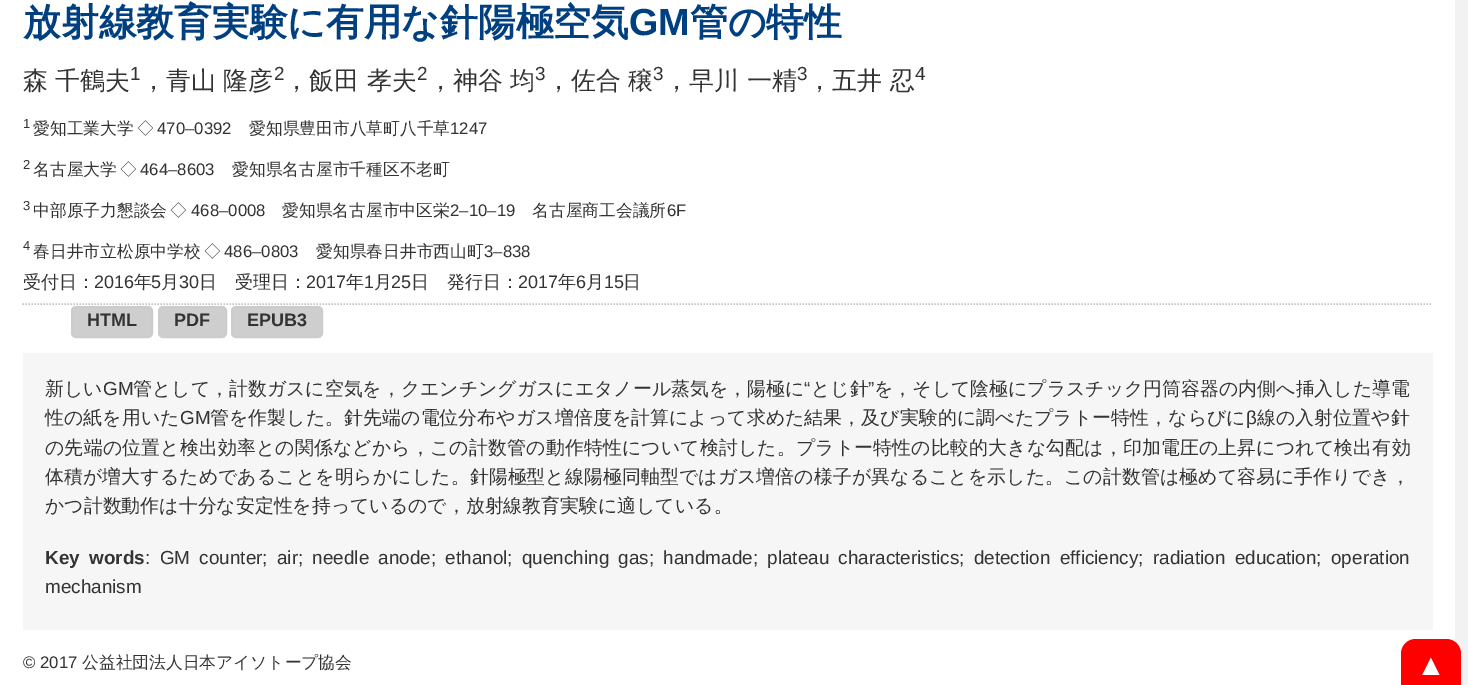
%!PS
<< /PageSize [1468 685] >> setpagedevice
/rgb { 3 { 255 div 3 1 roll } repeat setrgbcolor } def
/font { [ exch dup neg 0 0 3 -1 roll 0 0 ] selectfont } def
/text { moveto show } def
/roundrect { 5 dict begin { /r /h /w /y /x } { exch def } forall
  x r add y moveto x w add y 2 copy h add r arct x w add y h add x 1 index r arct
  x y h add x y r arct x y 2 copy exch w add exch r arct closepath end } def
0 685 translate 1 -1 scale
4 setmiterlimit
242 242 242 rgb
0 0 1468 685 rectfill
255 255 255 rgb
0 0 1455 685 rectfill
196 192 192 rgb
1.5 setlinewidth
[1.5 1.5] 0 setdash
22.5 304 moveto 1410 0 rlineto stroke
206 206 206 rgb
72 307 80 30 4 roundrect gsave fill grestore
204 204 204 rgb
2 setlinewidth
[] 0 setdash
stroke
206 206 206 rgb
159 307 67 30 4 roundrect gsave fill grestore
204 204 204 rgb
stroke
206 206 206 rgb
232 307 90 30 4 roundrect gsave fill grestore
204 204 204 rgb
stroke
246 246 246 rgb
23 353 1410 277 rectfill
255 0 0 rgb
1416 639 moveto 30 0 rlineto 8.5 0 15 6.5 15 15 rcurveto 0 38 rlineto -60 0 rlineto 0 -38 rlineto 0 -8.5 6.5 -15 15 -15 rcurveto closepath fill
/WenQuanYiZenHei-Bold 37.75 font
0 64 128 rgb
(放射線教育実験に有用な針陽極空気) 23 35 text
/LiberationSans-Bold 37.75 font
(GM) 629 35 text
/WenQuanYiZenHei-Bold 37.75 font
(管の特性) 690 35 text
/WenQuanYiZenHei-Medium 25 font
51 51 51 rgb
(森) 23 89 text
(千鶴夫) 55 89 text
/LiberationSans-Regular 18.9 font
(1) 130 80 text
/WenQuanYiZenHei-Medium 25 font
(，青山) 141 89 text
(隆彦) 223 89 text
/LiberationSans-Regular 18.9 font
(2) 274 80 text
/WenQuanYiZenHei-Medium 25 font
(，飯田) 284 89 text
(孝夫) 367 89 text
/LiberationSans-Regular 18.9 font
(2) 417 80 text
/WenQuanYiZenHei-Medium 25 font
(，神谷) 428 89 text
(均) 510 89 text
/LiberationSans-Regular 18.9 font
(3) 535 80 text
/WenQuanYiZenHei-Medium 25 font
(，佐合) 546 89 text
(穣) 628 89 text
/LiberationSans-Regular 18.9 font
(3) 653 80 text
/WenQuanYiZenHei-Medium 25 font
(，早川) 664 89 text
(一精) 747 89 text
/LiberationSans-Regular 18.9 font
(3) 797 80 text
/WenQuanYiZenHei-Medium 25 font
(，五井) 807 89 text
(忍) 890 89 text
/LiberationSans-Regular 18.9 font
(4) 915 80 text
/LiberationSans-Regular 13 font
(1) 23 128 text
/WenQuanYiZenHei-Medium 16.75 font
(愛知工業大学) 33 134 text
(◇) 137 134 text
/LiberationSans-Regular 16.75 font
(470–0392) 157 134 text
/WenQuanYiZenHei-Medium 16.75 font
(愛知県豊田市八草町八千草) 249 134 text
/LiberationSans-Regular 16.75 font
(1247) 450 134 text
/LiberationSans-Regular 13 font
(2) 23 169 text
/WenQuanYiZenHei-Medium 16.75 font
(名古屋大学) 33 175 text
(◇) 120 175 text
/LiberationSans-Regular 16.75 font
(464–8603) 140 175 text
/WenQuanYiZenHei-Medium 16.75 font
(愛知県名古屋市千種区不老町) 232 175 text
/LiberationSans-Regular 13 font
(3) 23 210 text
/WenQuanYiZenHei-Medium 16.75 font
(中部原子力懇談会) 33 216 text
(◇) 170 216 text
/LiberationSans-Regular 16.75 font
(468–0008) 191 216 text
/WenQuanYiZenHei-Medium 16.75 font
(愛知県名古屋市中区栄) 282 216 text
/LiberationSans-Regular 16.75 font
(2–10–19) 450 216 text
/WenQuanYiZenHei-Medium 16.75 font
(名古屋商工会議所) 532 216 text
/LiberationSans-Regular 16.75 font
(6F) 667 216 text
/LiberationSans-Regular 13 font
(4) 23 250 text
/WenQuanYiZenHei-Medium 16.75 font
(春日井市立松原中学校) 33 257 text
(◇) 204 257 text
/LiberationSans-Regular 16.75 font
(486–0803) 224 257 text
/WenQuanYiZenHei-Medium 16.75 font
(愛知県春日井市西山町) 316 257 text
/LiberationSans-Regular 16.75 font
(3–838) 484 257 text
/WenQuanYiZenHei-Medium 18 font
(受付日：) 23 288 text
/LiberationSans-Regular 18 font
(2016) 94 288 text
/WenQuanYiZenHei-Medium 18 font
(年) 134 288 text
/LiberationSans-Regular 18 font
(5) 151 288 text
/WenQuanYiZenHei-Medium 18 font
(月) 161 288 text
/LiberationSans-Regular 18 font
(30) 179 288 text
/WenQuanYiZenHei-Medium 18 font
(日) 199 288 text
(受理日：) 235 288 text
/LiberationSans-Regular 18 font
(2017) 306 288 text
/WenQuanYiZenHei-Medium 18 font
(年) 346 288 text
/LiberationSans-Regular 18 font
(1) 364 288 text
/WenQuanYiZenHei-Medium 18 font
(月) 374 288 text
/LiberationSans-Regular 18 font
(25) 391 288 text
/WenQuanYiZenHei-Medium 18 font
(日) 411 288 text
(発行日：) 447 288 text
/LiberationSans-Regular 18 font
(2017) 518 288 text
/WenQuanYiZenHei-Medium 18 font
(年) 558 288 text
/LiberationSans-Regular 18 font
(6) 576 288 text
/WenQuanYiZenHei-Medium 18 font
(月) 586 288 text
/LiberationSans-Regular 18 font
(15) 604 288 text
/WenQuanYiZenHei-Medium 18 font
(日) 623 288 text
/LiberationSans-Bold 18 font
(HTML) 87 326 text
(PDF) 174 326 text
(EPUB3) 247 326 text
/WenQuanYiZenHei-Medium 18.9 font
(新しい) 45 395 text
/LiberationSans-Regular 18.9 font
(GM) 103 395 text
/WenQuanYiZenHei-Medium 18.9 font
(管として，計数ガスに空気を，クエンチングガスにエタノール蒸気を，陽極に) 133 395 text
/LiberationSans-Regular 18.9 font
(“) 804 395 text
/WenQuanYiZenHei-Medium 18.9 font
(とじ針) 811 395 text
/LiberationSans-Regular 18.9 font
(”) 868 395 text
/WenQuanYiZenHei-Medium 18.9 font
(を，そして陰極にプラスチック円筒容器の内側へ挿入した導電) 874 395 text
45 424 moveto 0.08 0 (性の紙を用いた) ashow
/LiberationSans-Regular 18.9 font
180 424 moveto 0.08 0 (GM) ashow
/WenQuanYiZenHei-Medium 18.9 font
210 424 moveto 0.08 0 (管を作製した。針先端の電位分布やガス増倍度を計算によって求めた結果，及び実験的に調べたプラトー特性，ならびに) ashow
/LiberationSans-Regular 18.9 font
1246 424 moveto 0.08 0 (β) ashow
/WenQuanYiZenHei-Medium 18.9 font
1257 424 moveto 0.08 0 (線の入射位置や針) ashow
45 454 moveto 0.15 0 (の先端の位置と検出効率との関係などから，この計数管の動作特性について検討した。プラトー特性の比較的大きな勾配は，印加電圧の上昇につれて検出有効) ashow
45 483 moveto 0.08 0 (体積が増大するためであることを明らかにした。針陽極型と線陽極同軸型ではガス増倍の様子が異なることを示した。この計数管は極めて容易に手作りでき，) ashow
(かつ計数動作は十分な安定性を持っているので，放射線教育実験に適している。) 45 512 text
/LiberationSans-Bold 18.9 font
45 564 moveto 4 0 32 (Key words) widthshow
/LiberationSans-Regular 18.9 font
145 564 moveto 4 0 32 (: GM counter; air; needle anode; ethanol; quenching gas; handmade; plateau characteristics; detection efficiency; radiation education; operation) widthshow
(mechanism) 45 593 text
/LiberationSans-Regular 16.75 font
(© 2017) 23 668 text
/WenQuanYiZenHei-Medium 16.75 font
(公益社団法人日本アイソトープ協会) 82 668 text
/LiberationSans-Regular 30 font
255 255 255 rgb
(▲) 1416 675 text
showpage
